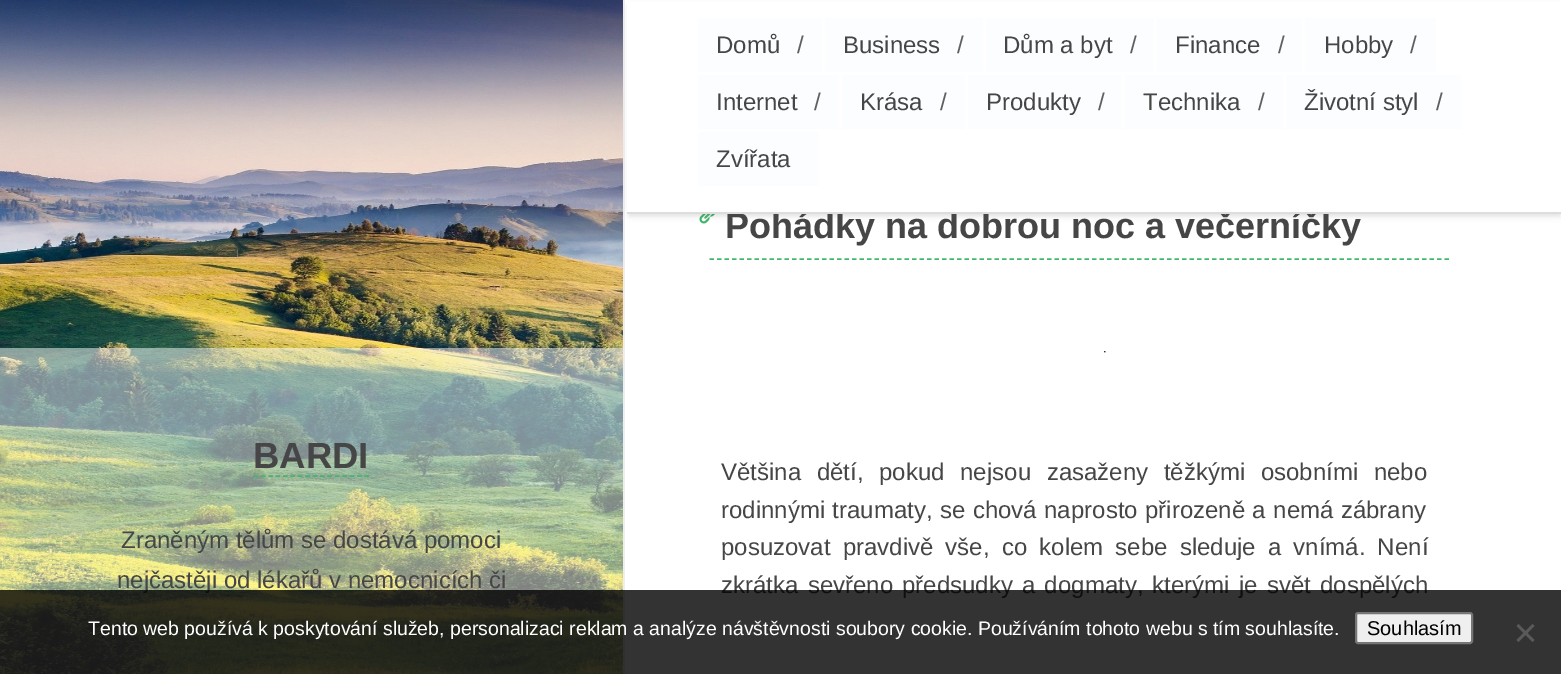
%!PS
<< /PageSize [1561 674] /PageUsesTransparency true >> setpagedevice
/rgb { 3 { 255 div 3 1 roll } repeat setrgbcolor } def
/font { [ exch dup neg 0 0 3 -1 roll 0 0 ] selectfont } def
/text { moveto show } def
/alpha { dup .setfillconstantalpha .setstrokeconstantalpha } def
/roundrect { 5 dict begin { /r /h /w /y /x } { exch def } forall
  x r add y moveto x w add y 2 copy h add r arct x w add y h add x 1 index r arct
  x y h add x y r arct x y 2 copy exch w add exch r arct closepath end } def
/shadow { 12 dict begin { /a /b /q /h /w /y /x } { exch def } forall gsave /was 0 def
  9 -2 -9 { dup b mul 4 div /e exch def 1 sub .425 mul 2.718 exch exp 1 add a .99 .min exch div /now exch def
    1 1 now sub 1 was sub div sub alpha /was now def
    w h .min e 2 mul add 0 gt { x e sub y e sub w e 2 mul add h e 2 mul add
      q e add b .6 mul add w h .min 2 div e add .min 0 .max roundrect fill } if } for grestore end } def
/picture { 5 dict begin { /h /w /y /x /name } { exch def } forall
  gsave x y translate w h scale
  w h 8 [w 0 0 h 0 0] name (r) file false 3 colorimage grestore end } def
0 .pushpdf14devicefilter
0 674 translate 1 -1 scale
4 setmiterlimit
255 255 255 rgb
0 0 1561 674 rectfill
(img_01.rgb) 0 0 623 674 picture
238 238 238 rgb
623 0 2 674 rectfill
0.5 alpha
255 255 255 rgb
0 348 623 326 rectfill
1 alpha
64 183 106 rgb
1.5 setlinewidth
[4.5 2.9] 0 setdash
253.5 476 moveto 115.5 0 rlineto stroke
(img_02.rgb) 699 214 16 10 picture
80 80 80 rgb
629 6 931 210 0 3 0.2 shadow
64 183 106 rgb
[4.5 3] 0 setdash
709.5 259 moveto 739.5 0 rlineto stroke
(img_03.rgb) 1104 351 2 2 picture
/LiberationSans-Bold 36.5 font
70 70 70 rgb
(BARDI) 253 468 text
/LiberationSans-Regular 24 font
(Zraněným tělům se dostává pomoci) 121 548 text
(nejčastěji od lékařů v nemocnicích či) 117 588 text
/LiberationSans-Bold 36 font
(Pohádky na dobrou noc a večerníčky) 725 238 text
255 255 255 rgb
627 2 934 210 rectfill
252 253 254 rgb
698 132 121 54 rectfill
/LiberationSans-Regular 24 font
70 70 70 rgb
(Zvířata) 716 167 text
252 253 254 rgb
1286 75 175 54 rectfill
96 96 96 rgb
(/) 1436 110 text
70 70 70 rgb
(Životní styl) 1304 110 text
252 253 254 rgb
1125 75 158 54 rectfill
96 96 96 rgb
(/) 1258 110 text
70 70 70 rgb
(Technika) 1143 110 text
252 253 254 rgb
968 75 154 54 rectfill
96 96 96 rgb
(/) 1098 110 text
70 70 70 rgb
(Produkty) 986 110 text
252 253 254 rgb
842 75 123 54 rectfill
96 96 96 rgb
(/) 940 110 text
70 70 70 rgb
(Krása) 860 110 text
252 253 254 rgb
698 75 141 54 rectfill
96 96 96 rgb
(/) 814 110 text
70 70 70 rgb
(Internet) 716 110 text
252 253 254 rgb
1305 18 131 54 rectfill
96 96 96 rgb
(/) 1410 53 text
70 70 70 rgb
(Hobby) 1324 53 text
252 253 254 rgb
1157 18 145 54 rectfill
96 96 96 rgb
(/) 1278 53 text
70 70 70 rgb
(Finance) 1175 53 text
252 253 254 rgb
986 18 168 54 rectfill
96 96 96 rgb
(/) 1130 53 text
70 70 70 rgb
(Dům a byt) 1003 53 text
252 253 254 rgb
825 18 158 54 rectfill
96 96 96 rgb
(/) 957 53 text
70 70 70 rgb
(Business) 843 53 text
252 253 254 rgb
698 18 124 54 rectfill
96 96 96 rgb
(/) 797 53 text
70 70 70 rgb
(Domů) 716 53 text
221 221 221 rgb
627 212 934 2 rectfill
70 70 70 rgb
721 480 moveto 9 0 32 (Většina dětí, pokud nejsou zasaženy těžkými osobními nebo) widthshow
721 518 moveto 0.75 0 32 (rodinnými traumaty, se chová naprosto přirozeně a nemá zábrany) widthshow
721 555 moveto 5.5 0 32 (posuzovat pravdivě vše, co kolem sebe sleduje a vnímá. Není) widthshow
721 593 moveto 2.5 0 32 (zkrátka sevřeno předsudky a dogmaty, kterými je svět dospělých) widthshow
0.8 alpha
0 0 0 rgb
0 590 1561 84 rectfill
/LiberationSans-Regular 19.5 font
1 alpha
255 255 255 rgb
(Tento web používá k poskytování služeb, personalizaci reklam a analýze návštěvnosti soubory cookie. Používáním tohoto webu s tím souhlasíte.) 88 635 text
239 239 239 rgb
1356 613 116 30 2 roundrect gsave fill grestore
118 118 118 rgb
2 setlinewidth
[] 0 setdash
stroke
/LiberationSans-Regular 20 font
0 0 0 rgb
(Souhlasím) 1367 635 text
90 90 90 rgb
1532.5 624 moveto 2 2 rlineto -16 16 rlineto -2 -2 rlineto closepath fill
1516.5 626 moveto 2 -2 rlineto 16 16 rlineto -2 2 rlineto closepath fill
.poppdf14devicefilter showpage
